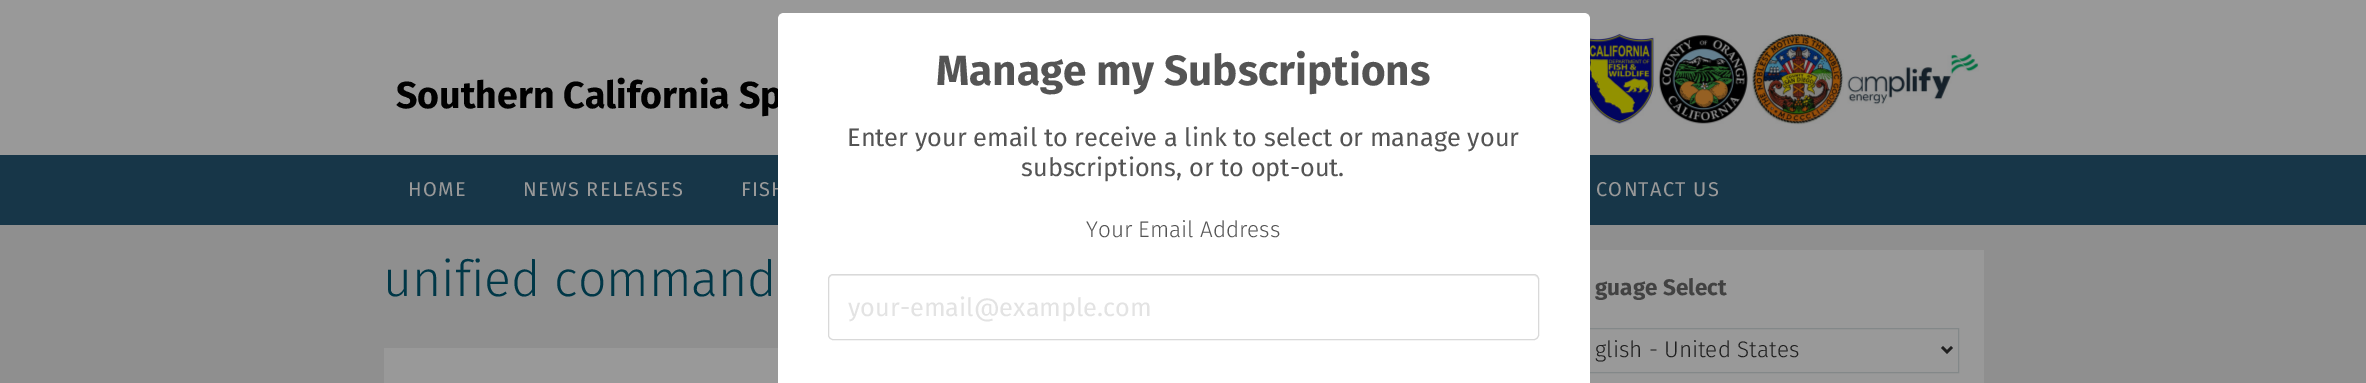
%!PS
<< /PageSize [2366 383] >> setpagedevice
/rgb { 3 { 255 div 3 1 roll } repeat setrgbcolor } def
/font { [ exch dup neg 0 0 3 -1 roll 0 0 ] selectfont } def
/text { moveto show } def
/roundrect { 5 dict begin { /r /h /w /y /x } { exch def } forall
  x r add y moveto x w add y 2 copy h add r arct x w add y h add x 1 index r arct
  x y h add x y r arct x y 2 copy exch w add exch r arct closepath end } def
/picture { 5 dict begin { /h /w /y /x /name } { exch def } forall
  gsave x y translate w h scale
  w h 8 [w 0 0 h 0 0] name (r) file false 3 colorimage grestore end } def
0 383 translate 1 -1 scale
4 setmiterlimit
143 143 143 rgb
0 0 2366 383 rectfill
153 153 153 rgb
0 0 2366 155 rectfill
(img_01.rgb) 1590 31 389 94 picture
23 54 72 rgb
0 155 2366 70 rectfill
153 153 153 rgb
384 348 394 35 rectfill
1590 250 394 133 rectfill
131 136 137 rgb
1559.5 328.5 399 44 rectstroke
31 31 31 rgb
2.5 setlinewidth
1942 347 moveto 5 5 rlineto 5 -5 rlineto stroke
/FiraSans-Bold 37.5 font
0 0 0 rgb
(Southern California Sp) 396 108 text
/FiraSans-Regular 20 font
153 153 153 rgb
408 196 moveto 1.25 0 (HOME) ashow
523 196 moveto 1.25 0 (NEWS RELEASES) ashow
741 196 moveto 1.25 0 (FISH) ashow
255 255 255 rgb
784 13 moveto 800 0 rlineto 3.5 0 6 2.5 6 6 rcurveto 0 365 rlineto -812 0 rlineto 0 -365 rlineto 0 -3.5 2.5 -6 6 -6 rcurveto closepath fill
/FiraSans-Regular 25.3 font
84 84 84 rgb
(subscriptions, or to opt-out.) 1021 176 text
(Enter your email to receive a link to select or manage your) 847 146 text
/FiraSans-Bold 42.25 font
(Manage my Subscriptions) 936 85 text
240 240 240 rgb
832 276 moveto 702 0 rlineto 2 0 4 2 4 4 rcurveto 0 -3 -1 -5 -4 -5 rcurveto -701 0 rlineto -3 1 rlineto -1 1 rlineto 0 3 rlineto 0 -2 1 -4 3 -4 rcurveto closepath fill
217 217 217 rgb
1 setlinewidth
828.5 274.5 710 65 4.5 roundrect stroke
/FiraSans-Regular 25.3 font
227 227 227 rgb
(your-email@example.com) 848 316 text
/FiraSans-Light 22.5 font
84 84 84 rgb
(Your Email Address) 1086 237 text
/FiraSans-Regular 20 font
153 153 153 rgb
1596 196 moveto 1.25 0 (CONTACT US) ashow
/FiraSans-Light 50 font
0 55 71 rgb
(unified command) 383 296 text
/FiraSans-Bold 22.5 font
66 66 66 rgb
(guage Select) 1595 295 text
/FiraSans-Light 22.5 font
31 31 31 rgb
(glish - United States) 1595 357 text
showpage
